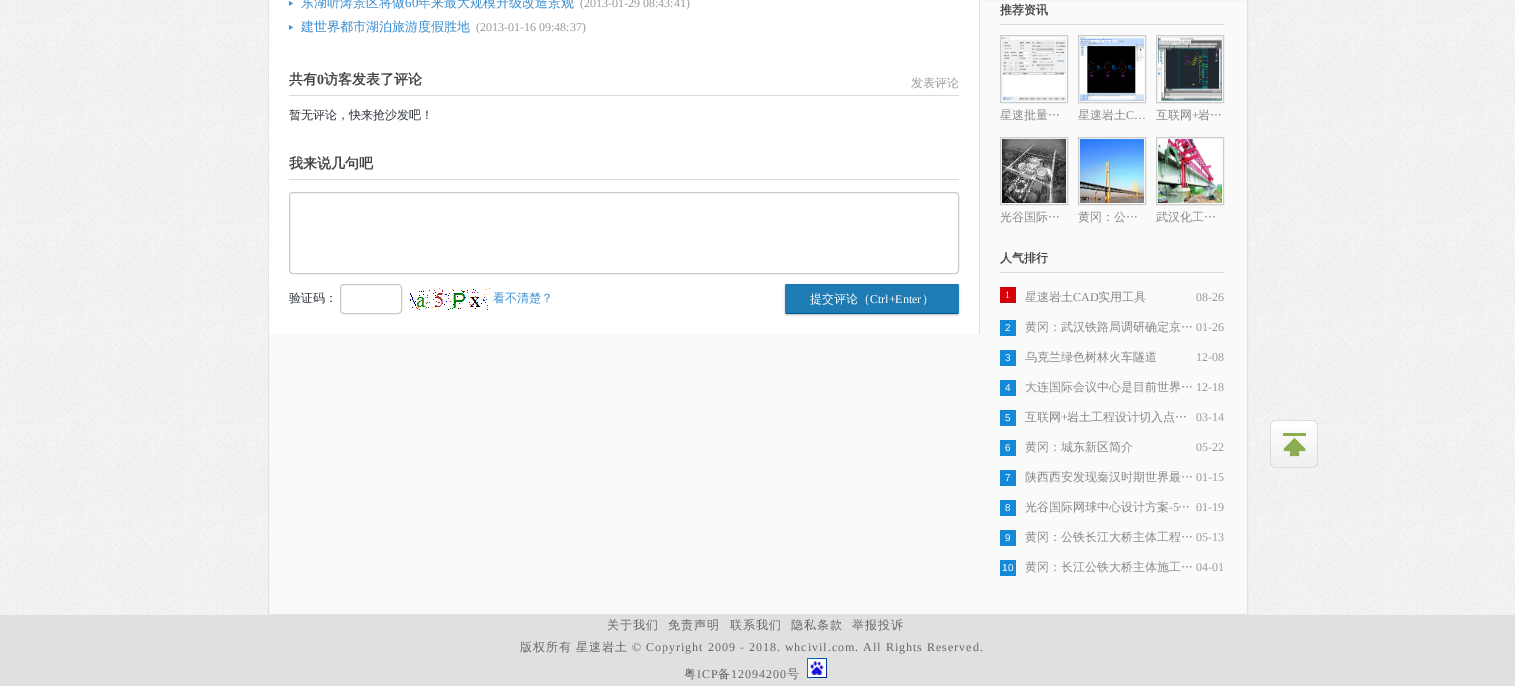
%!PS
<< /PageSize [1515 686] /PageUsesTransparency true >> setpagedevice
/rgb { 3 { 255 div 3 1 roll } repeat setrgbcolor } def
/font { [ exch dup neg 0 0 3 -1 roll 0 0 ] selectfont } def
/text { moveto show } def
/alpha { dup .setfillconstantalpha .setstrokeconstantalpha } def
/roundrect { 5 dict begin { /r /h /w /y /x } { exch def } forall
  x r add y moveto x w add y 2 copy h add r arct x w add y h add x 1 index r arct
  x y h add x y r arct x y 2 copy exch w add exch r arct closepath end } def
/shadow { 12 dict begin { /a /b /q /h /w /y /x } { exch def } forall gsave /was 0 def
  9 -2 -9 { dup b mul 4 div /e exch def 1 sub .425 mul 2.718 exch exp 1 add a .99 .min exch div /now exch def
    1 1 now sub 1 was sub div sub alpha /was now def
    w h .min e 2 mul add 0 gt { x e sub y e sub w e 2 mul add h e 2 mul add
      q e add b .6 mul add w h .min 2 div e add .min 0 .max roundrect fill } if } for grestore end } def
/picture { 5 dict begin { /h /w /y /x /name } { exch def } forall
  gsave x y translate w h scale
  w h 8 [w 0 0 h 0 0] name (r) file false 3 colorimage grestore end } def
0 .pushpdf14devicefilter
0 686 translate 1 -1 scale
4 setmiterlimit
255 255 255 rgb
0 0 1515 686 rectfill
(img_01.rgb) 0 0 1515 615 picture
250 250 250 rgb
268.5 -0.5 moveto 979 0 rlineto 0 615 rlineto -979 0 rlineto closepath gsave fill grestore
226 226 226 rgb
stroke
255 255 255 rgb
269 0 710 334 rectfill
226 226 226 rgb
979 0 1 334 rectfill
(img_02.rgb) 289 1 5 5 picture
(img_02.rgb) 289 25 5 5 picture
218 218 218 rgb
289 95 670 1 rectfill
289 179 670 1 rectfill
202 202 202 rgb
289.5 192.5 669 81 3.5 roundrect stroke
340.5 284.5 61 29 3.5 roundrect stroke
(img_03.rgb) 410 288 80 22 picture
187 187 187 rgb
785 285 174 30 2 1 1 shadow
30 123 179 rgb
785 284 174 30 2 roundrect fill
2 89 142 rgb
786 313 172 1 rectfill
218 218 218 rgb
1000 24 224 1 rectfill
204 204 204 rgb
1000.5 35.5 67 67 rectstroke
(img_04.rgb) 1002 37 64 64 picture
1078.5 35.5 67 67 rectstroke
(img_05.rgb) 1080 37 64 64 picture
1156.5 35.5 67 67 rectstroke
(img_06.rgb) 1158 37 64 64 picture
1000.5 137.5 67 67 rectstroke
(img_07.rgb) 1002 139 64 64 picture
1078.5 137.5 67 67 rectstroke
(img_08.rgb) 1080 139 64 64 picture
1156.5 137.5 67 67 rectstroke
(img_09.rgb) 1158 139 64 64 picture
218 218 218 rgb
1000 272 224 1 rectfill
214 0 7 rgb
1000 287 16 16 rectfill
19 137 215 rgb
1000 320 16 16 rectfill
1000 350 16 16 rectfill
1000 380 16 16 rectfill
1000 410 16 16 rectfill
1000 440 16 16 rectfill
1000 470 16 16 rectfill
1000 500 16 16 rectfill
1000 530 16 16 rectfill
1000 560 16 16 rectfill
(img_10.rgb) 1270 420 48 48 picture
224 224 224 rgb
0 615 1515 71 rectfill
(img_11.rgb) 807 658 20 20 picture
/WenQuanYiZenHei-Medium 13 font
59 141 209 rgb
(东湖听涛景区将做) 301 7 text
/LiberationSerif-Regular 13 font
(60) 405 7 text
/WenQuanYiZenHei-Medium 13 font
(年来最大规模升级改造景观) 418 7 text
/LiberationSerif-Regular 12 font
153 153 153 rgb
(\(2013-01-29 08:43:41\)) 580 7 text
/WenQuanYiZenHei-Medium 13 font
59 141 209 rgb
(建世界都市湖泊旅游度假胜地) 301 31 text
/LiberationSerif-Regular 12 font
153 153 153 rgb
(\(2013-01-16 09:48:37\)) 476 31 text
/WenQuanYiZenHei-Bold 14 font
68 68 68 rgb
(共有) 289 84 text
/LiberationSerif-Bold 14 font
(0) 317 84 text
/WenQuanYiZenHei-Bold 14 font
(访客发表了评论) 324 84 text
/WenQuanYiZenHei-Medium 12 font
153 153 153 rgb
(发表评论) 911 87 text
51 56 61 rgb
(暂无评论，快来抢沙发吧！) 289 119 text
/WenQuanYiZenHei-Bold 14 font
68 68 68 rgb
(我来说几句吧) 289 168 text
/WenQuanYiZenHei-Medium 12 font
51 56 61 rgb
(验证码：) 289 302 text
59 141 209 rgb
(看不清楚？) 493 302 text
255 255 255 rgb
(提交评论（) 810 303 text
/LiberationSerif-Regular 12 font
(Ctrl+Enter) 870 303 text
/WenQuanYiZenHei-Medium 12 font
(）) 922 303 text
/WenQuanYiZenHei-Bold 12 font
68 68 68 rgb
(推荐资讯) 1000 14 text
/WenQuanYiZenHei-Medium 12 font
136 136 136 rgb
(星速批量…) 1000 119 text
(星速岩土) 1078 119 text
/LiberationSerif-Regular 12 font
(C…) 1126 119 text
/WenQuanYiZenHei-Medium 12 font
(互联网) 1156 119 text
/LiberationSerif-Regular 12 font
(+) 1192 119 text
/WenQuanYiZenHei-Medium 12 font
(岩…) 1198 119 text
(光谷国际…) 1000 221 text
(黄冈：公…) 1078 221 text
(武汉化工…) 1156 221 text
/WenQuanYiZenHei-Bold 12 font
68 68 68 rgb
(人气排行) 1000 262 text
/LiberationSerif-Regular 10 font
255 255 255 rgb
(1) 1005 298 text
/WenQuanYiZenHei-Medium 12 font
136 136 136 rgb
(星速岩土) 1025 301 text
/LiberationSerif-Regular 12 font
(CAD) 1073 301 text
/WenQuanYiZenHei-Medium 12 font
(实用工具) 1098 301 text
/LiberationSerif-Regular 12 font
153 153 153 rgb
(08-26) 1196 301 text
/LiberationSans-Regular 10 font
255 255 255 rgb
(2) 1005 331 text
/WenQuanYiZenHei-Medium 12 font
136 136 136 rgb
(黄冈：武汉铁路局调研确定京…) 1025 331 text
/LiberationSerif-Regular 12 font
153 153 153 rgb
(01-26) 1196 331 text
/LiberationSans-Regular 10 font
255 255 255 rgb
(3) 1005 361 text
/WenQuanYiZenHei-Medium 12 font
136 136 136 rgb
(乌克兰绿色树林火车隧道) 1025 361 text
/LiberationSerif-Regular 12 font
153 153 153 rgb
(12-08) 1196 361 text
/LiberationSans-Regular 10 font
255 255 255 rgb
(4) 1005 391 text
/WenQuanYiZenHei-Medium 12 font
136 136 136 rgb
(大连国际会议中心是目前世界…) 1025 391 text
/LiberationSerif-Regular 12 font
153 153 153 rgb
(12-18) 1196 391 text
/LiberationSans-Regular 10 font
255 255 255 rgb
(5) 1005 421 text
/WenQuanYiZenHei-Medium 12 font
136 136 136 rgb
(互联网) 1025 421 text
/LiberationSerif-Regular 12 font
(+) 1061 421 text
/WenQuanYiZenHei-Medium 12 font
(岩土工程设计切入点…) 1067 421 text
/LiberationSerif-Regular 12 font
153 153 153 rgb
(03-14) 1196 421 text
/LiberationSans-Regular 10 font
255 255 255 rgb
(6) 1005 451 text
/WenQuanYiZenHei-Medium 12 font
136 136 136 rgb
(黄冈：城东新区简介) 1025 451 text
/LiberationSerif-Regular 12 font
153 153 153 rgb
(05-22) 1196 451 text
/LiberationSans-Regular 10 font
255 255 255 rgb
(7) 1005 481 text
/WenQuanYiZenHei-Medium 12 font
136 136 136 rgb
(陕西西安发现秦汉时期世界最…) 1025 481 text
/LiberationSerif-Regular 12 font
153 153 153 rgb
(01-15) 1196 481 text
/LiberationSans-Regular 10 font
255 255 255 rgb
(8) 1005 511 text
/WenQuanYiZenHei-Medium 12 font
136 136 136 rgb
(光谷国际网球中心设计方案) 1025 511 text
/LiberationSerif-Regular 12 font
(-5) 1169 511 text
/WenQuanYiZenHei-Medium 12 font
(…) 1178 511 text
/LiberationSerif-Regular 12 font
153 153 153 rgb
(01-19) 1196 511 text
/LiberationSans-Regular 10 font
255 255 255 rgb
(9) 1005 541 text
/WenQuanYiZenHei-Medium 12 font
136 136 136 rgb
(黄冈：公铁长江大桥主体工程…) 1025 541 text
/LiberationSerif-Regular 12 font
153 153 153 rgb
(05-13) 1196 541 text
/LiberationSans-Regular 10 font
255 255 255 rgb
(10) 1002 571 text
/WenQuanYiZenHei-Medium 12 font
136 136 136 rgb
(黄冈：长江公铁大桥主体施工…) 1025 571 text
/LiberationSerif-Regular 12 font
153 153 153 rgb
(04-01) 1196 571 text
/WenQuanYiZenHei-Medium 12 font
102 102 102 rgb
607 629 moveto 1 0 (关于我们) ashow
668 629 moveto 1 0 (免责声明) ashow
730 629 moveto 1 0 (联系我们) ashow
791 629 moveto 1 0 (隐私条款) ashow
852 629 moveto 1 0 (举报投诉) ashow
520 651 moveto 1 0 (版权所有) ashow
576 651 moveto 1 0 (星速岩土) ashow
/LiberationSerif-Regular 12 font
632 651 moveto 1 0 (© Copyright 2009 - 2018. whcivil.com. All Rights Reserved.) ashow
/WenQuanYiZenHei-Medium 12 font
684 678 moveto 1 0 (粤) ashow
/LiberationSerif-Regular 12 font
697 678 moveto 1 0 (ICP) ashow
/WenQuanYiZenHei-Medium 12 font
718 678 moveto 1 0 (备) ashow
/LiberationSerif-Regular 12 font
731 678 moveto 1 0 (12094200) ashow
/WenQuanYiZenHei-Medium 12 font
787 678 moveto 1 0 (号) ashow
.poppdf14devicefilter showpage
